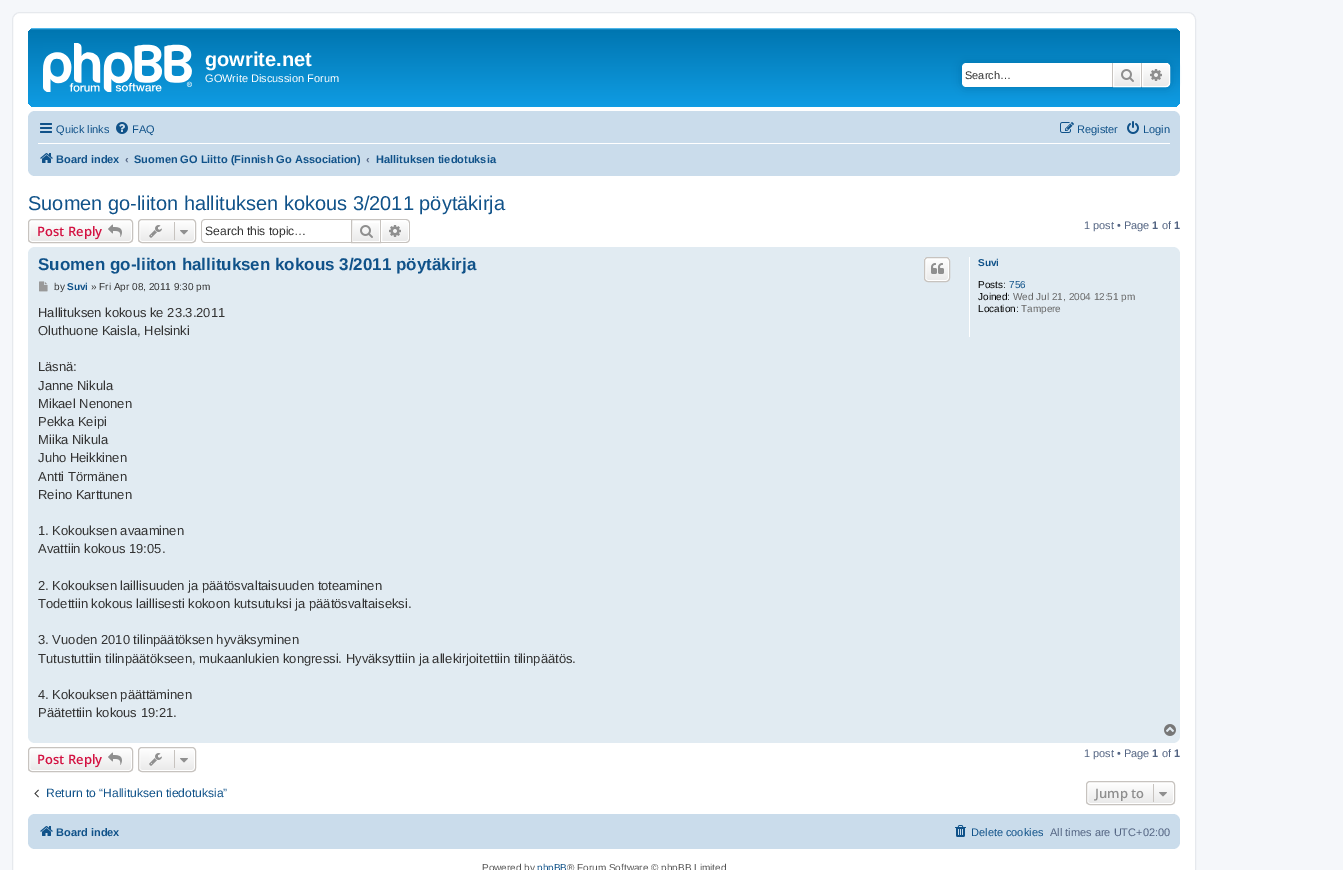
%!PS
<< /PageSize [1343 870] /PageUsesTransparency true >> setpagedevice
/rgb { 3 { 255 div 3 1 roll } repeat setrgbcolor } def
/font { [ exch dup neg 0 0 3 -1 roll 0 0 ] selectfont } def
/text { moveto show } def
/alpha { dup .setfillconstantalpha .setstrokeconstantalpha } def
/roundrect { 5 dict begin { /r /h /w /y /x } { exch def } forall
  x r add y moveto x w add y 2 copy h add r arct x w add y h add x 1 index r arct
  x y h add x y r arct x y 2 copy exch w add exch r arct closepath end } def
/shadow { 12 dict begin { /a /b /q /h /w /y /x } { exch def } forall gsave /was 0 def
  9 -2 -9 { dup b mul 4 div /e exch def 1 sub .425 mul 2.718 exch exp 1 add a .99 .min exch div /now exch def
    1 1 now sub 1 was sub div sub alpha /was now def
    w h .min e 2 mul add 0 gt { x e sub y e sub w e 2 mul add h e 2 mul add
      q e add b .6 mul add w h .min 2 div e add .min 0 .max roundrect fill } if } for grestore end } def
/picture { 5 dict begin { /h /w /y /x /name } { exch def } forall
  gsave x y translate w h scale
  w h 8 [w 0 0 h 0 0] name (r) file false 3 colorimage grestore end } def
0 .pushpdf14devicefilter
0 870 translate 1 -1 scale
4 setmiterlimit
245 247 250 rgb
0 0 1343 870 rectfill
255 255 255 rgb
12.5 12.5 1183 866 7.5 roundrect gsave fill grestore
230 233 237 rgb
stroke
gsave 28 28 1152 79 7 roundrect clip newpath
<< /ShadingType 2 /ColorSpace /DeviceRGB /Coords [604 28 604 120] /Extend [true true] /Function << /FunctionType 3 /Domain [0 1] /Functions [<< /FunctionType 2 /Domain [0 1] /C0 [0.416 0.808 1] /C1 [0 0.463 0.694] /N 1 >> << /FunctionType 2 /Domain [0 1] /C0 [0 0.463 0.694] /C1 [0.071 0.639 0.922] /N 1 >>] /Bounds [0.02] /Encode [0 1 0 1] >> >> shfill grestore
(img_01.rgb) 43 43 149 49 picture
0 117 176 rgb
962 63 208 24 4 5 1 shadow
255 255 255 rgb
966 63 moveto 146 0 rlineto 0 24 rlineto -146 0 rlineto -2 0 -4 -2 -4 -4 rcurveto 0 -16 rlineto 0 -2 2 -4 4 -4 rcurveto closepath fill
gsave 1114 64 moveto 26 0 rlineto 0 22 rlineto -26 0 rlineto closepath clip newpath
<< /ShadingType 2 /ColorSpace /DeviceRGB /Coords [1127 63 1127 87] /Extend [true true] /Function << /FunctionType 2 /Domain [0 1] /C0 [1 1 1] /C1 [0.914 0.914 0.914] /N 1 >> >> shfill grestore
1113.5 63.5 27 23 rectstroke
199 195 191 rgb
1141 63 1 24 rectfill
1112 63 1 24 rectfill
(img_02.rgb) 1121 69 13 13 picture
gsave 1142.5 63.5 moveto 23.5 0 rlineto 2 0 3.5 1.5 3.5 3.5 rcurveto 0 16 rlineto 0 2 -1.5 3.5 -3.5 3.5 rcurveto -23.5 0 rlineto closepath clip newpath
<< /ShadingType 2 /ColorSpace /DeviceRGB /Coords [1156 63 1156 87] /Extend [true true] /Function << /FunctionType 2 /Domain [0 1] /C0 [1 1 1] /C1 [0.914 0.914 0.914] /N 1 >> >> shfill grestore
255 255 255 rgb
1142.5 63.5 moveto 23.5 0 rlineto 2 0 3.5 1.5 3.5 3.5 rcurveto 0 16 rlineto 0 2 -1.5 3.5 -3.5 3.5 rcurveto -23.5 0 rlineto closepath stroke
(img_03.rgb) 1150 69 12 12 picture
202 220 235 rgb
28 111 1152 65 7 roundrect fill
(img_04.rgb) 40 123 12 10 picture
(img_05.rgb) 116 122 12 12 picture
(img_06.rgb) 1060 122 14 11 picture
(img_07.rgb) 1127 121 12 13 picture
255 255 255 rgb
38 143 1132 1 rectfill
(img_08.rgb) 40 153 13 10 picture
gsave
28 219 105 24 4 roundrect clip newpath
gsave 28 220 moveto 105 0 rlineto 0 22 rlineto -105 0 rlineto closepath clip newpath
<< /ShadingType 2 /ColorSpace /DeviceRGB /Coords [81 220 81 242] /Extend [true true] /Function << /FunctionType 2 /Domain [0 1] /C0 [1 1 1] /C1 [0.914 0.914 0.914] /N 1 >> >> shfill grestore
grestore
29.5 220.5 102 21 2.5 roundrect stroke
199 195 191 rgb
28.5 219.5 104 23 3.5 roundrect stroke
(img_09.rgb) 108 224 14 13 picture
gsave
138 219 58 24 4 roundrect clip newpath
gsave 138 220 moveto 58 0 rlineto 0 22 rlineto -58 0 rlineto closepath clip newpath
<< /ShadingType 2 /ColorSpace /DeviceRGB /Coords [167 220 167 242] /Extend [true true] /Function << /FunctionType 2 /Domain [0 1] /C0 [1 1 1] /C1 [0.914 0.914 0.914] /N 1 >> >> shfill grestore
grestore
255 255 255 rgb
139.5 220.5 55 21 2.5 roundrect stroke
199 195 191 rgb
138.5 219.5 57 23 3.5 roundrect stroke
(img_10.rgb) 149 225 13 13 picture
174 222 1 18 rectfill
(img_11.rgb) 180 230 8 5 picture
205 219 moveto 146 0 rlineto 0 24 rlineto -146 0 rlineto -2 0 -4 -2 -4 -4 rcurveto 0 -16 rlineto 0 -2 2 -4 4 -4 rcurveto closepath 205 220 moveto 146 0 rlineto 0 22 rlineto -146 0 rlineto -2 0 -3 -1 -3 -3 rcurveto 0 -16 rlineto 0 -2 1 -3 3 -3 rcurveto closepath eofill
gsave 353 223 moveto 26 0 rlineto 0 18 rlineto -26 0 rlineto closepath clip newpath
<< /ShadingType 2 /ColorSpace /DeviceRGB /Coords [366 220 366 242] /Extend [true true] /Function << /FunctionType 2 /Domain [0 1] /C0 [1 1 1] /C1 [0.914 0.914 0.914] /N 1 >> >> shfill grestore
351.5 219.5 29 23 rectstroke
(img_12.rgb) 360 225 13 13 picture
gsave 381.5 220.5 moveto 24.5 0 rlineto 1.5 0 2.5 1 2.5 2.5 rcurveto 0 16 rlineto 0 1.5 -1 2.5 -2.5 2.5 rcurveto -24.5 0 rlineto closepath clip newpath
<< /ShadingType 2 /ColorSpace /DeviceRGB /Coords [395 220 395 242] /Extend [true true] /Function << /FunctionType 2 /Domain [0 1] /C0 [1 1 1] /C1 [0.914 0.914 0.914] /N 1 >> >> shfill grestore
255 255 255 rgb
381.5 220.5 moveto 24.5 0 rlineto 1.5 0 2.5 1 2.5 2.5 rcurveto 0 16 rlineto 0 1.5 -1 2.5 -2.5 2.5 rcurveto -24.5 0 rlineto closepath stroke
199 195 191 rgb
381 219 moveto 25 0 rlineto 2 0 4 2 4 4 rcurveto 0 16 rlineto 0 2 -2 4 -4 4 rcurveto -25 0 rlineto closepath 381 220 moveto 25 0 rlineto 1.5 0 3 1.5 3 3 rcurveto 0 16 rlineto 0 1.5 -1.5 3 -3 3 rcurveto -25 0 rlineto closepath eofill
(img_13.rgb) 389 225 12 12 picture
225 235 242 rgb
28 247 1152 496 7 roundrect fill
gsave
924 257 26 25 4 roundrect clip newpath
gsave 924 258 moveto 26 0 rlineto 0 23 rlineto -26 0 rlineto closepath clip newpath
<< /ShadingType 2 /ColorSpace /DeviceRGB /Coords [937 258 937 281] /Extend [true true] /Function << /FunctionType 2 /Domain [0 1] /C0 [1 1 1] /C1 [0.914 0.914 0.914] /N 1 >> >> shfill grestore
grestore
255 255 255 rgb
925.5 258.5 23 22 2.5 roundrect stroke
199 195 191 rgb
924.5 257.5 25 24 3.5 roundrect stroke
(img_14.rgb) 931 263 13 11 picture
(img_15.rgb) 39 281 9 11 picture
255 255 255 rgb
969 257 1 80 rectfill
(img_16.rgb) 1164 724 12 12 picture
gsave
28 747 105 25 4 roundrect clip newpath
gsave 28 748 moveto 105 0 rlineto 0 23 rlineto -105 0 rlineto closepath clip newpath
<< /ShadingType 2 /ColorSpace /DeviceRGB /Coords [81 748 81 771] /Extend [true true] /Function << /FunctionType 2 /Domain [0 1] /C0 [1 1 1] /C1 [0.914 0.914 0.914] /N 1 >> >> shfill grestore
grestore
29.5 748.5 102 22 2.5 roundrect stroke
199 195 191 rgb
28.5 747.5 104 24 3.5 roundrect stroke
(img_09.rgb) 108 752 14 13 picture
gsave
138 747 58 25 4 roundrect clip newpath
gsave 138 748 moveto 58 0 rlineto 0 23 rlineto -58 0 rlineto closepath clip newpath
<< /ShadingType 2 /ColorSpace /DeviceRGB /Coords [167 748 167 771] /Extend [true true] /Function << /FunctionType 2 /Domain [0 1] /C0 [1 1 1] /C1 [0.914 0.914 0.914] /N 1 >> >> shfill grestore
grestore
255 255 255 rgb
139.5 748.5 55 22 2.5 roundrect stroke
199 195 191 rgb
138.5 747.5 57 24 3.5 roundrect stroke
(img_10.rgb) 149 753 13 13 picture
174 750 1 18 rectfill
(img_11.rgb) 180 758 8 5 picture
(img_17.rgb) 34 789 5 9 picture
gsave
1086 781 89 24 4 roundrect clip newpath
gsave 1086 782 moveto 89 0 rlineto 0 22 rlineto -89 0 rlineto closepath clip newpath
<< /ShadingType 2 /ColorSpace /DeviceRGB /Coords [1131 782 1131 804] /Extend [true true] /Function << /FunctionType 2 /Domain [0 1] /C0 [1 1 1] /C1 [0.914 0.914 0.914] /N 1 >> >> shfill grestore
grestore
255 255 255 rgb
1087.5 782.5 86 21 2.5 roundrect stroke
199 195 191 rgb
1086.5 781.5 88 23 3.5 roundrect stroke
1153 784 1 18 rectfill
(img_11.rgb) 1159 792 8 5 picture
202 220 235 rgb
28 814 1152 35 7 roundrect fill
(img_08.rgb) 40 826 13 10 picture
(img_18.rgb) 955 825 11 12 picture
/LiberationSans-Bold 20 font
255 255 255 rgb
(gowrite.net) 205 66 text
/LiberationSans-Regular 11 font
(GOWrite Discussion Forum) 205 82 text
51 51 51 rgb
(Search…) 965 79 text
16 82 137 rgb
(Quick links) 56 133 text
(FAQ) 132 133 text
(Register) 1077 133 text
(Login) 1143 133 text
/LiberationSans-Bold 11 font
(Board index) 56 163 text
83 100 130 rgb
(‹) 125 163 text
16 82 137 rgb
(Suomen GO Liitto \(Finnish Go Association\)) 134 163 text
83 100 130 rgb
(‹) 366 163 text
16 82 137 rgb
(Hallituksen tiedotuksia) 376 163 text
/LiberationSans-Regular 20 font
(Suomen go-liiton hallituksen kokous 3/2011 pöytäkirja) 28 210 text
/OpenSans-SemiBold 13 font
211 17 65 rgb
(Post Reply) 37 236 text
/LiberationSans-Regular 12.1 font
51 51 51 rgb
(Search this topic…) 205 235 text
/LiberationSans-Regular 11 font
83 100 130 rgb
(1 post • Page) 1084 229 text
/LiberationSans-Bold 11 font
(1) 1152 229 text
/LiberationSans-Regular 11 font
(of) 1162 229 text
/LiberationSans-Bold 11 font
(1) 1174 229 text
/LiberationSans-Bold 17 font
16 82 137 rgb
(Suomen go-liiton hallituksen kokous 3/2011 pöytäkirja) 38 270 text
/LiberationSans-Regular 10 font
51 51 51 rgb
(by) 54 290 text
/LiberationSans-Bold 10 font
16 82 137 rgb
(Suvi) 67 290 text
/LiberationSans-Regular 10 font
51 51 51 rgb
(» Fri Apr 08, 2011 9:30 pm) 91 290 text
/LiberationSans-Regular 13 font
(Hallituksen kokous ke 23.3.2011) 38 317 text
(Oluthuone Kaisla, Helsinki) 38 335 text
(Läsnä:) 38 371 text
(Janne Nikula) 38 390 text
(Mikael Nenonen) 38 408 text
(Pekka Keipi) 38 426 text
(Miika Nikula) 38 444 text
(Juho Heikkinen) 38 462 text
(Antti Törmänen) 38 481 text
(Reino Karttunen) 38 499 text
(1. Kokouksen avaaminen) 38 535 text
(Avattiin kokous 19:05.) 38 553 text
(2. Kokouksen laillisuuden ja päätösvaltaisuuden toteaminen) 38 590 text
(Todettiin kokous laillisesti kokoon kutsutuksi ja päätösvaltaiseksi.) 38 608 text
(3. Vuoden 2010 tilinpäätöksen hyväksyminen) 38 644 text
(Tutustuttiin tilinpäätökseen, mukaanlukien kongressi. Hyväksyttiin ja allekirjoitettiin tilinpäätös.) 38 663 text
(4. Kokouksen päättäminen) 38 699 text
(Päätettiin kokous 19:21.) 38 717 text
/LiberationSans-Bold 10 font
16 82 137 rgb
(Suvi) 978 266 text
/LiberationSans-Regular 10 font
0 0 0 rgb
(Posts:) 978 288 text
16 82 137 rgb
(756) 1009 288 text
0 0 0 rgb
(Joined:) 978 300 text
102 102 102 rgb
(Wed Jul 21, 2004 12:51 pm) 1013 300 text
0 0 0 rgb
(Location:) 978 312 text
102 102 102 rgb
(Tampere) 1021 312 text
/OpenSans-SemiBold 13 font
211 17 65 rgb
(Post Reply) 37 764 text
/LiberationSans-Regular 11 font
83 100 130 rgb
(1 post • Page) 1084 757 text
/LiberationSans-Bold 11 font
(1) 1152 757 text
/LiberationSans-Regular 11 font
(of) 1162 757 text
/LiberationSans-Bold 11 font
(1) 1174 757 text
/LiberationSans-Regular 12.1 font
16 82 137 rgb
(Return to “Hallituksen tiedotuksia”) 46 797 text
/OpenSans-SemiBold 13 font
143 143 143 rgb
(Jump to) 1095 798 text
/LiberationSans-Bold 11 font
16 82 137 rgb
(Board index) 56 836 text
/LiberationSans-Regular 11 font
(Delete cookies) 971 836 text
83 100 130 rgb
(All times are UTC+02:00) 1050 836 text
/LiberationSans-Regular 10 font
85 85 85 rgb
(Powered by) 482 871 text
16 82 137 rgb
(phpBB) 537 871 text
85 85 85 rgb
(® Forum Software © phpBB Limited) 567 871 text
.poppdf14devicefilter showpage
